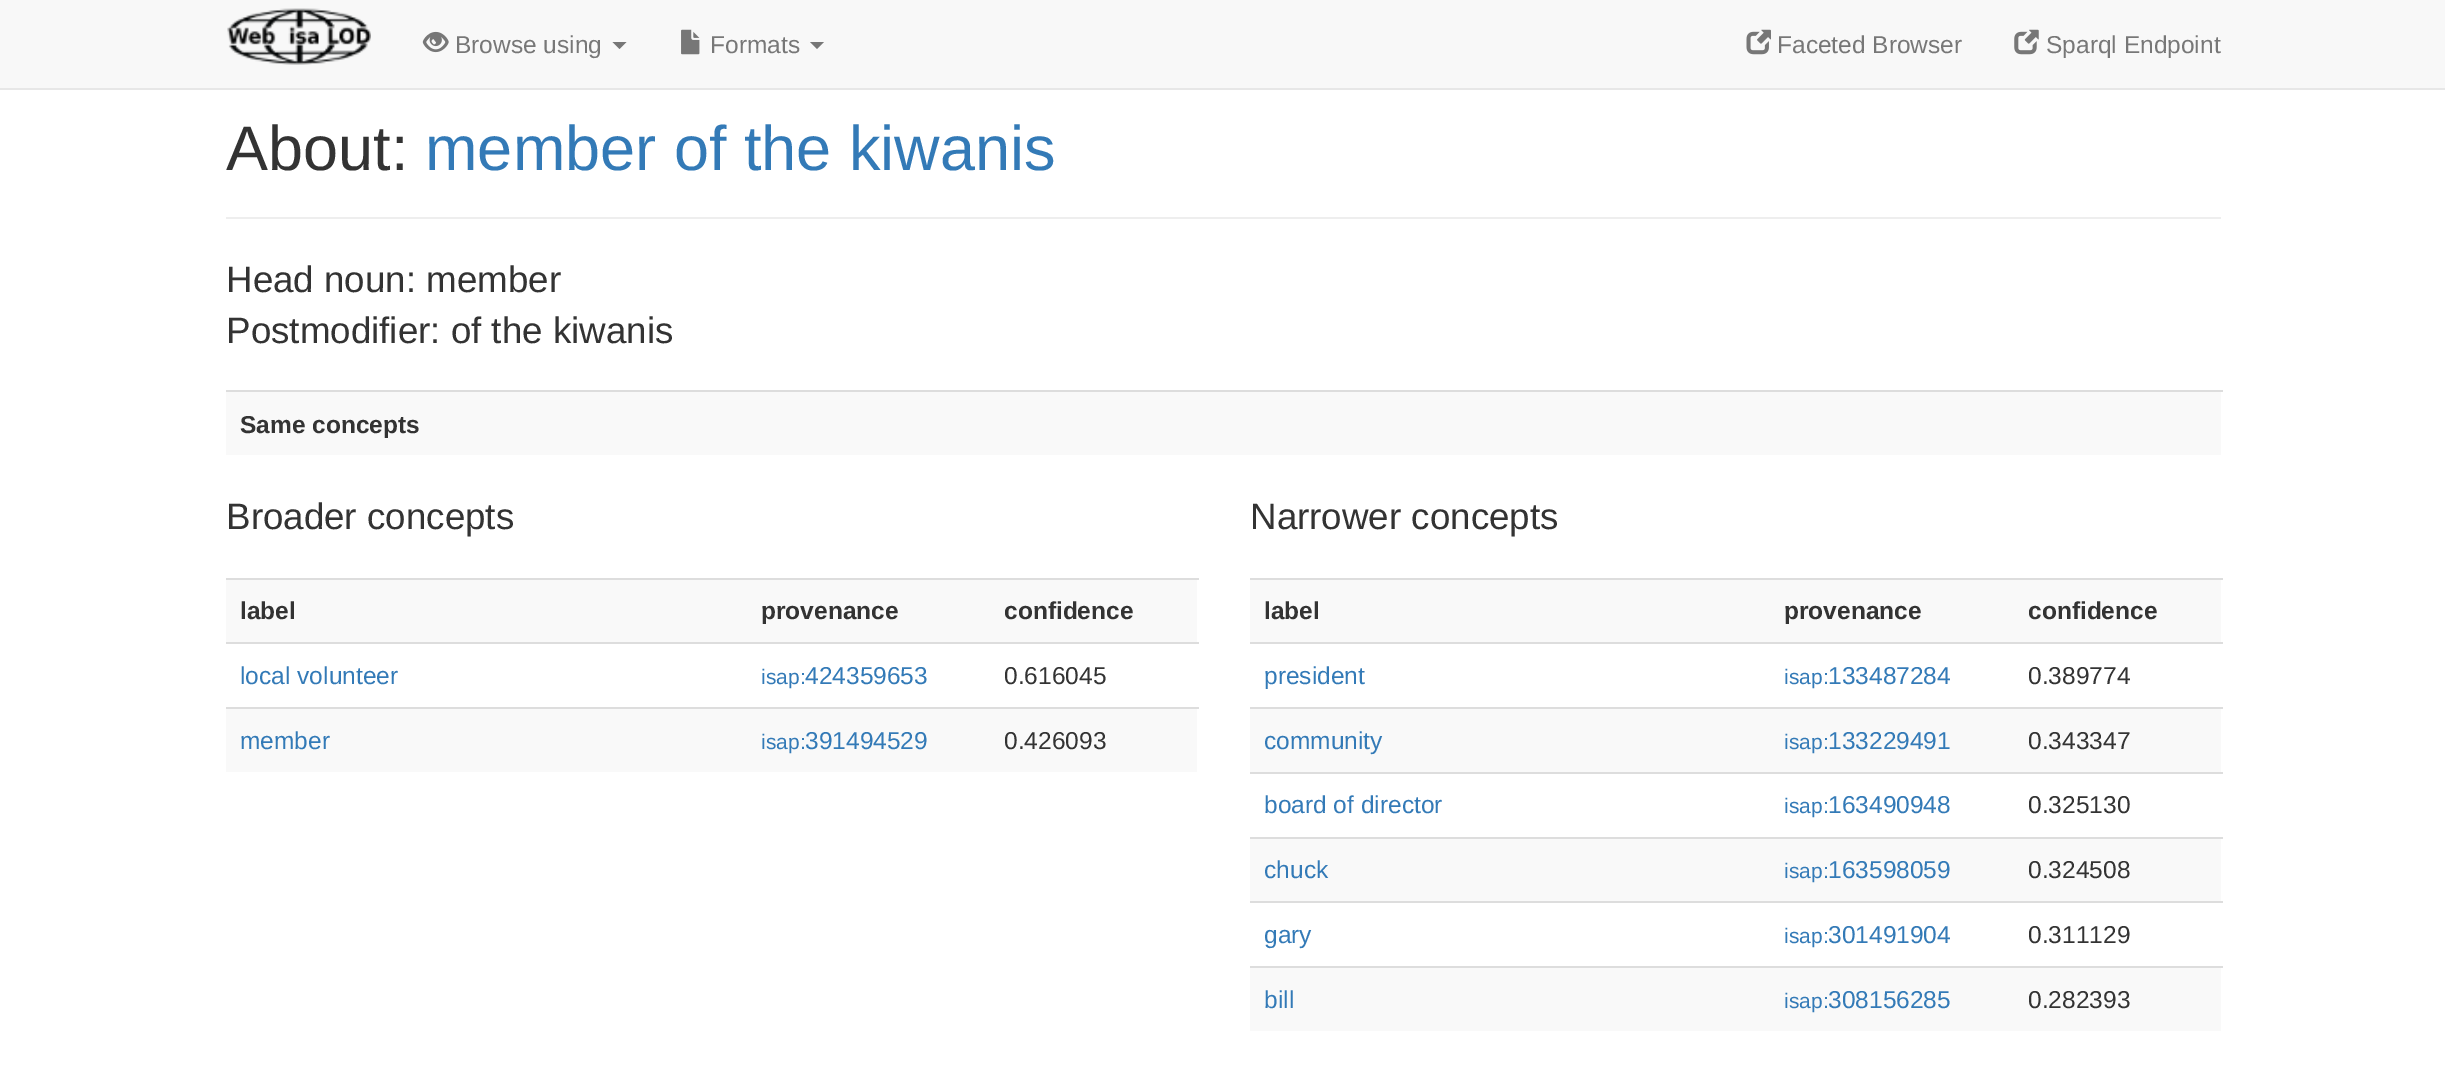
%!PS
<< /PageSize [2445 1075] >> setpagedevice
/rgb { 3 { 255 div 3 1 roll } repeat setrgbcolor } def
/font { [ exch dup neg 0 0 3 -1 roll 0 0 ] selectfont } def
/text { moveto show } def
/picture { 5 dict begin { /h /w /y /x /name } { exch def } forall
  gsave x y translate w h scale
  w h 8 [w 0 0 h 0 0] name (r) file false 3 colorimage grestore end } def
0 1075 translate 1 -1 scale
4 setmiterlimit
255 255 255 rgb
0 0 2445 1075 rectfill
248 248 248 rgb
0 0 2445 88 rectfill
231 231 231 rgb
0 88 2445 2 rectfill
(img_01.rgb) 227 8 144 57 picture
(img_02.rgb) 422 31 27 22 picture
119 119 119 rgb
612.5 42 moveto 14 0 rlineto -7 7 rlineto closepath fill
(img_03.rgb) 681 29 19 26 picture
810 42 moveto 14 0 rlineto -7 7 rlineto closepath fill
(img_04.rgb) 1746 29 25 26 picture
(img_05.rgb) 2014 29 25 26 picture
238 238 238 rgb
226 217 1995 2 rectfill
249 249 249 rgb
226 392 1995 63 rectfill
221 221 221 rgb
226 390 1997 2 rectfill
249 249 249 rgb
226 580 971 62 rectfill
221 221 221 rgb
226 578 973 2 rectfill
226 642 973 2 rectfill
249 249 249 rgb
226 709 971 63 rectfill
221 221 221 rgb
226 707 973 2 rectfill
249 249 249 rgb
1250 580 971 62 rectfill
221 221 221 rgb
1250 578 973 2 rectfill
1250 642 973 2 rectfill
249 249 249 rgb
1250 709 971 63 rectfill
221 221 221 rgb
1250 707 973 2 rectfill
1250 772 973 2 rectfill
249 249 249 rgb
1250 839 971 62 rectfill
221 221 221 rgb
1250 837 973 2 rectfill
1250 901 973 2 rectfill
249 249 249 rgb
1250 968 971 63 rectfill
221 221 221 rgb
1250 966 973 2 rectfill
/LiberationSans-Regular 24.5 font
119 119 119 rgb
(Browse using) 455 53 text
(Formats) 710 53 text
(Faceted Browser) 1777 53 text
(Sparql Endpoint) 2046 53 text
/LiberationSans-Regular 63 font
51 51 51 rgb
(About:) 226 170 text
51 122 183 rgb
(member of the kiwanis) 425 170 text
/LiberationSans-Regular 36.75 font
51 51 51 rgb
(Head noun: member) 226 292 text
(Postmodifier: of the kiwanis) 226 343 text
/LiberationSans-Bold 24.5 font
(Same concepts) 240 433 text
/LiberationSans-Regular 36.75 font
(Broader concepts) 226 529 text
/LiberationSans-Bold 24.5 font
(label) 240 619 text
(provenance) 761 619 text
(confidence) 1004 619 text
/LiberationSans-Regular 24.5 font
51 122 183 rgb
(local volunteer) 240 684 text
/LiberationSans-Regular 21 font
(isap:) 761 684 text
/LiberationSans-Regular 24.5 font
(424359653) 805 684 text
51 51 51 rgb
(0.616045) 1004 684 text
51 122 183 rgb
(member) 240 749 text
/LiberationSans-Regular 21 font
(isap:) 761 749 text
/LiberationSans-Regular 24.5 font
(391494529) 805 749 text
51 51 51 rgb
(0.426093) 1004 749 text
/LiberationSans-Regular 36.75 font
(Narrower concepts) 1250 529 text
/LiberationSans-Bold 24.5 font
(label) 1264 619 text
(provenance) 1784 619 text
(confidence) 2028 619 text
/LiberationSans-Regular 24.5 font
51 122 183 rgb
(president) 1264 684 text
/LiberationSans-Regular 21 font
(isap:) 1784 684 text
/LiberationSans-Regular 24.5 font
(133487284) 1828 684 text
51 51 51 rgb
(0.389774) 2028 684 text
51 122 183 rgb
(community) 1264 749 text
/LiberationSans-Regular 21 font
(isap:) 1784 749 text
/LiberationSans-Regular 24.5 font
(133229491) 1828 749 text
51 51 51 rgb
(0.343347) 2028 749 text
51 122 183 rgb
(board of director) 1264 813 text
/LiberationSans-Regular 21 font
(isap:) 1784 813 text
/LiberationSans-Regular 24.5 font
(163490948) 1828 813 text
51 51 51 rgb
(0.325130) 2028 813 text
51 122 183 rgb
(chuck) 1264 878 text
/LiberationSans-Regular 21 font
(isap:) 1784 878 text
/LiberationSans-Regular 24.5 font
(163598059) 1828 878 text
51 51 51 rgb
(0.324508) 2028 878 text
51 122 183 rgb
(gary) 1264 943 text
/LiberationSans-Regular 21 font
(isap:) 1784 943 text
/LiberationSans-Regular 24.5 font
(301491904) 1828 943 text
51 51 51 rgb
(0.311129) 2028 943 text
51 122 183 rgb
(bill) 1264 1008 text
/LiberationSans-Regular 21 font
(isap:) 1784 1008 text
/LiberationSans-Regular 24.5 font
(308156285) 1828 1008 text
51 51 51 rgb
(0.282393) 2028 1008 text
showpage
